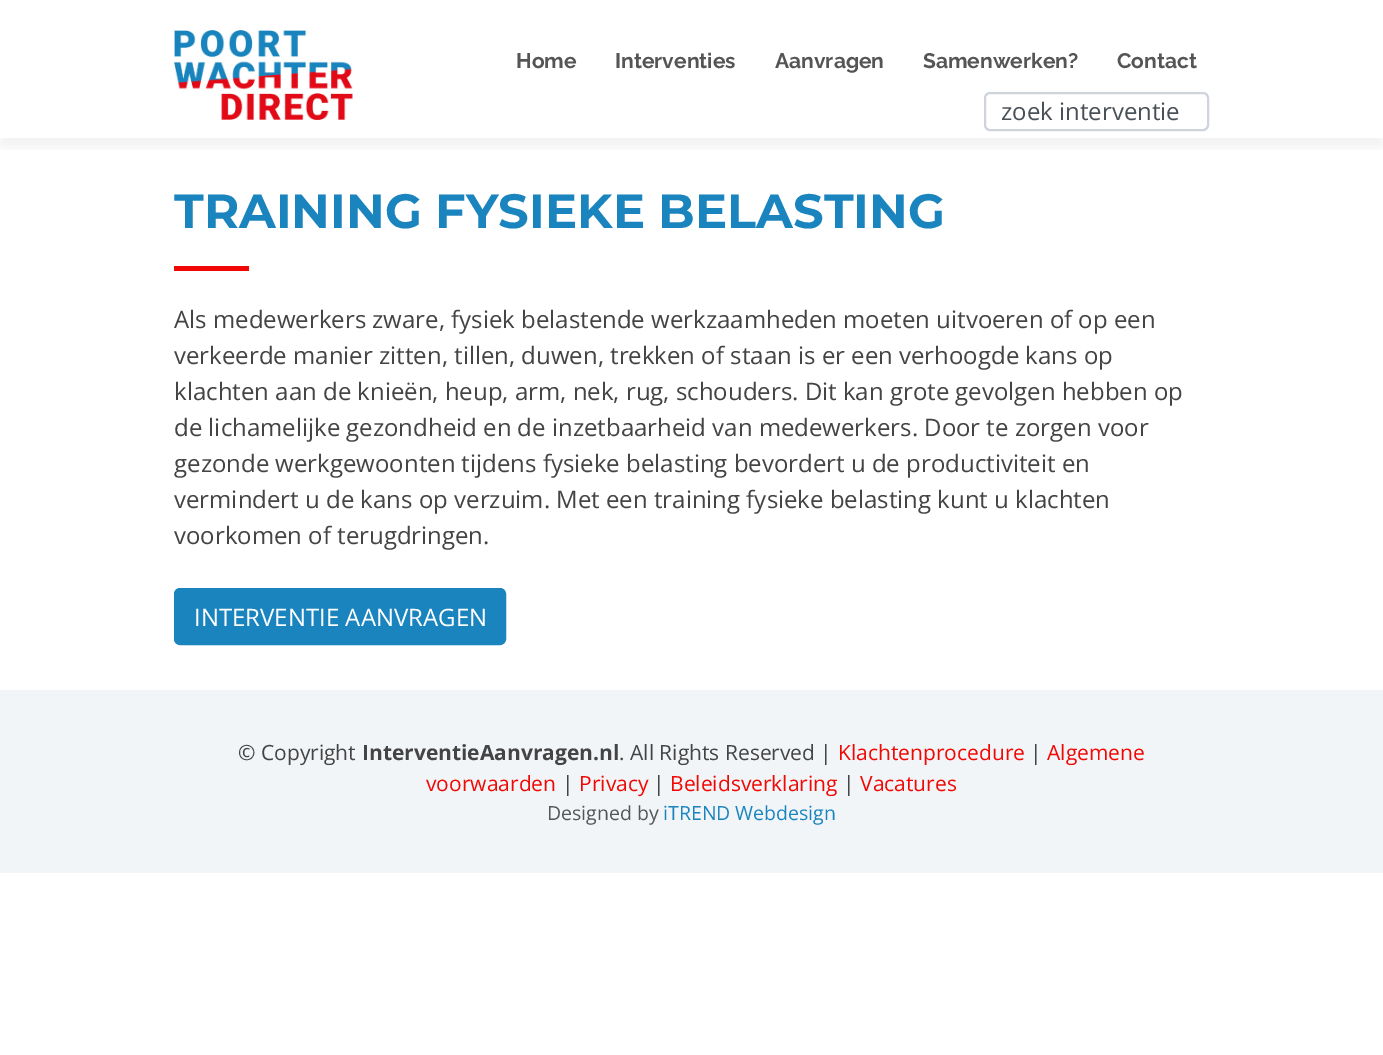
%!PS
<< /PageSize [1383 1055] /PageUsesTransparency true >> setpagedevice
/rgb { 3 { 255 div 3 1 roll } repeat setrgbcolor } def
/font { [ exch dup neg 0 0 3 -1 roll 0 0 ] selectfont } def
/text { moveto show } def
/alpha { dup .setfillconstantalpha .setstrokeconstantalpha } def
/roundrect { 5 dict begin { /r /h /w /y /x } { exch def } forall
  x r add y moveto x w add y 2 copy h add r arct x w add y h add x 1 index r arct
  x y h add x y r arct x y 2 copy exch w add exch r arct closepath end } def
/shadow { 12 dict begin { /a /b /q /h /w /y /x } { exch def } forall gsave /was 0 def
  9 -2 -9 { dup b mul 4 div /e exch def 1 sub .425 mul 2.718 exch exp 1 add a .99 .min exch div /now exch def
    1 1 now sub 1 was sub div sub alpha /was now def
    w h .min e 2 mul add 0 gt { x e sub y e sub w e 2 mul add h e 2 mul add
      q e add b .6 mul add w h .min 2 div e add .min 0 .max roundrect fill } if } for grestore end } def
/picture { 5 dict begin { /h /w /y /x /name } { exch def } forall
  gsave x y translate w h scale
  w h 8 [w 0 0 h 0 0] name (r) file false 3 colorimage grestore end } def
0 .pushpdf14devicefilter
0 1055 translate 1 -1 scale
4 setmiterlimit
255 255 255 rgb
0 0 1383 1055 rectfill
gsave
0 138 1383 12 rectclip
0 0 0 rgb
0 9 1383 138 0 7 0.06 shadow
grestore
(img_01.rgb) 174 30 179 90 picture
206 212 218 rgb
2 setlinewidth
985 93 223 37 5 roundrect stroke
241 8 4 rgb
174 266 75 5 rectfill
26 132 190 rgb
175 589 330 55 5 roundrect gsave fill grestore
stroke
242 245 248 rgb
0 690 1383 183 rectfill
/Raleway-Bold 21 font
85 85 85 rgb
(Home) 516 68 text
(Interventies) 615 68 text
(Aanvragen) 775 68 text
(Samenwerken?) 923 68 text
(Contact) 1117 68 text
/OpenSans-Regular 24 font
73 80 87 rgb
(zoek interventie) 1001 120 text
/Montserrat-Bold 48 font
26 132 190 rgb
(TRAINING FYSIEKE BELASTING) 174 228 text
/OpenSans-Regular 24 font
68 68 68 rgb
(Als medewerkers zware, fysiek belastende werkzaamheden moeten uitvoeren of op een) 174 328 text
(verkeerde manier zitten, tillen, duwen, trekken of staan is er een verhoogde kans op) 174 364 text
(klachten aan de knieën, heup, arm, nek, rug, schouders. Dit kan grote gevolgen hebben op) 174 400 text
(de lichamelijke gezondheid en de inzetbaarheid van medewerkers. Door te zorgen voor) 174 436 text
(gezonde werkgewoonten tijdens fysieke belasting bevordert u de productiviteit en) 174 472 text
(vermindert u de kans op verzuim. Met een training fysieke belasting kunt u klachten) 174 508 text
(voorkomen of terugdringen.) 174 544 text
255 255 255 rgb
(INTERVENTIE AANVRAGEN) 194 626 text
/OpenSans-Regular 21 font
68 68 68 rgb
(© Copyright) 238 760 text
/OpenSans-Bold 21 font
(InterventieAanvragen.nl) 362 760 text
/OpenSans-Regular 21 font
(. All Rights Reserved |) 619 760 text
241 8 4 rgb
(Klachtenprocedure) 838 760 text
68 68 68 rgb
(|) 1030 760 text
241 8 4 rgb
(Algemene) 1047 760 text
(voorwaarden) 426 791 text
68 68 68 rgb
(|) 562 791 text
241 8 4 rgb
(Privacy) 579 791 text
68 68 68 rgb
(|) 653 791 text
241 8 4 rgb
(Beleidsverklaring) 670 791 text
68 68 68 rgb
(|) 843 791 text
241 8 4 rgb
(Vacatures) 860 791 text
/OpenSans-Regular 19.5 font
85 85 85 rgb
(Designed by) 547 820 text
26 132 190 rgb
(iTREND Webdesign) 663 820 text
.poppdf14devicefilter showpage
